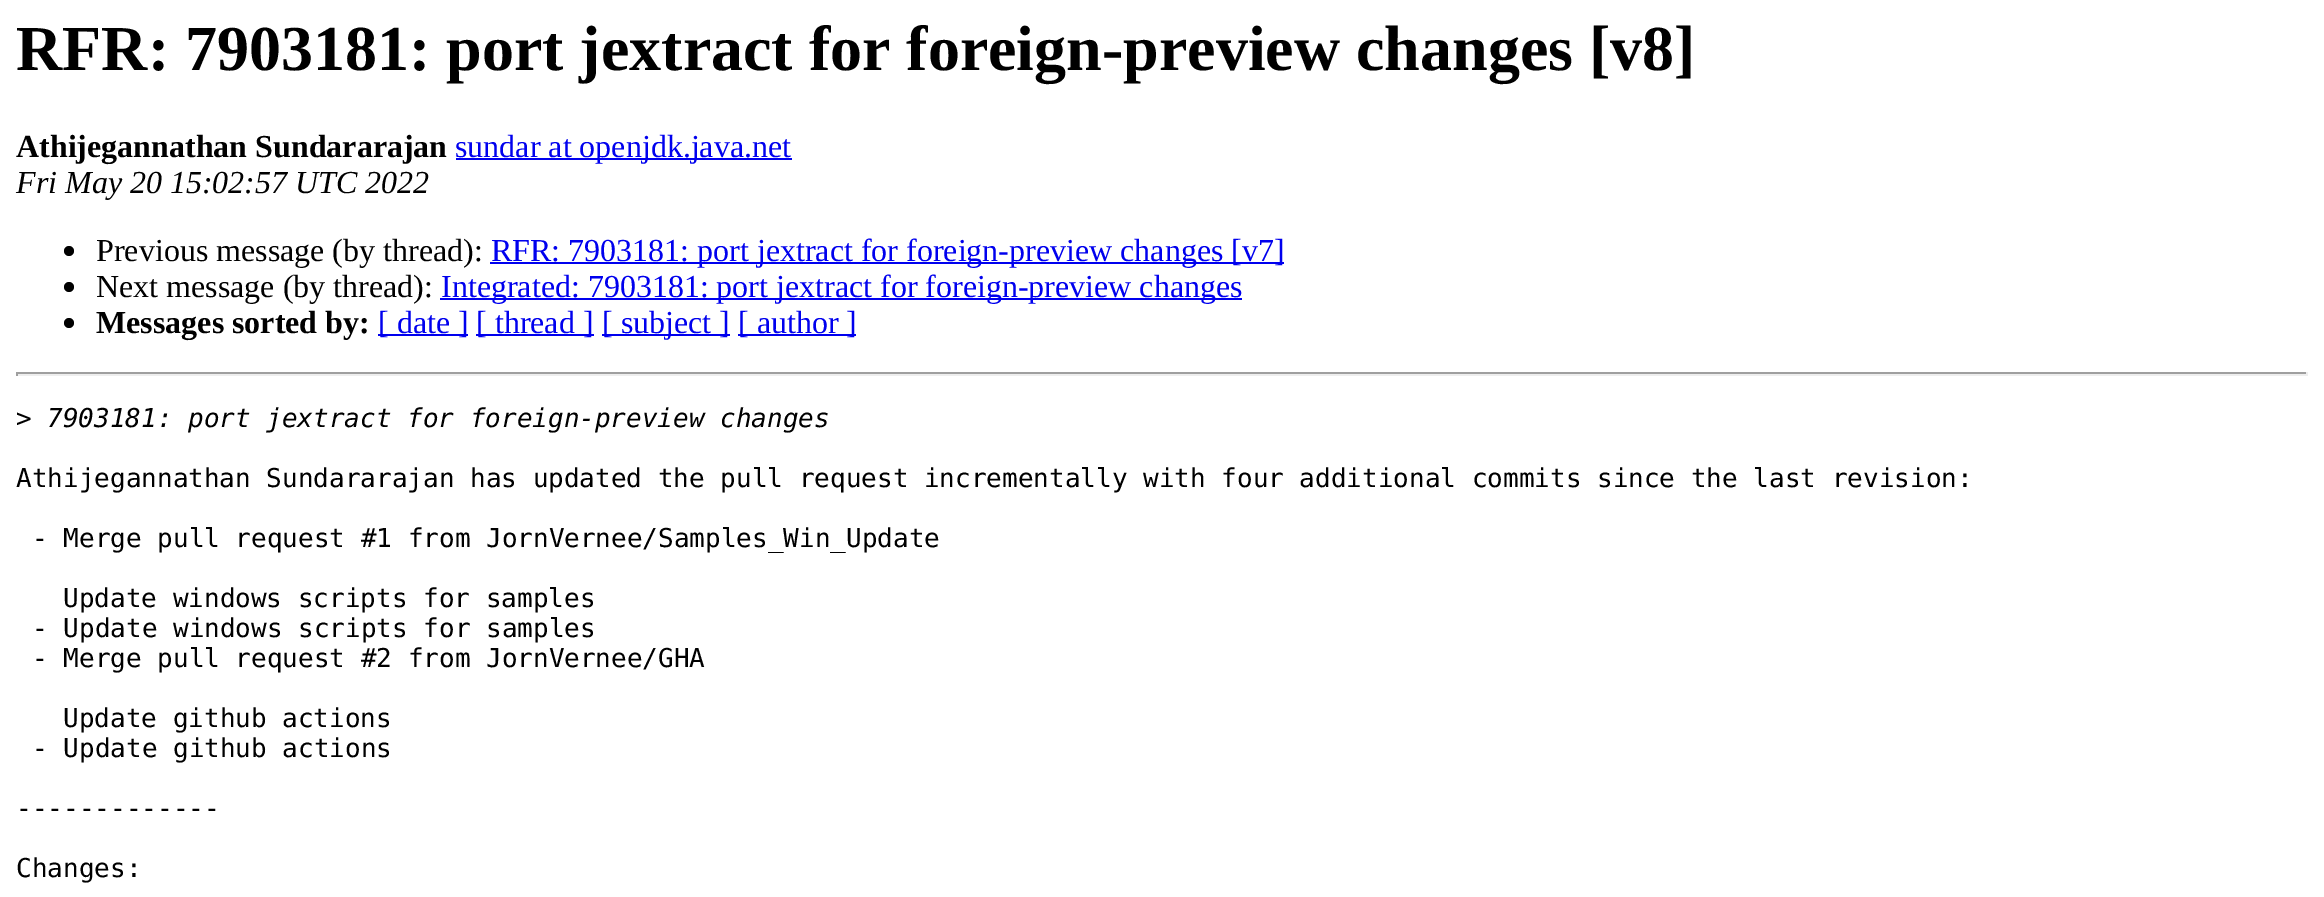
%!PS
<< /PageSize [2324 897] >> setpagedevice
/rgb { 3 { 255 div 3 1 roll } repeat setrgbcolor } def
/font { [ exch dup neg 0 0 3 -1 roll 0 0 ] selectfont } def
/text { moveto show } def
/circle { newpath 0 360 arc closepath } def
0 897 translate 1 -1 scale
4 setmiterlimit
255 255 255 rgb
0 0 2324 897 rectfill
0 0 238 rgb
456 158 336 2 rectfill
0 0 0 rgb
69 251 5 circle fill
0 0 238 rgb
490 262 794 2 rectfill
0 0 0 rgb
69 287 5 circle fill
0 0 238 rgb
440 298 802 2 rectfill
0 0 0 rgb
69 323 5 circle fill
0 0 238 rgb
378 334 90 2 rectfill
476 334 118 2 rectfill
602 334 128 2 rectfill
738 334 118 2 rectfill
159 159 159 rgb
16 372 2292 2 rectfill
238 238 238 rgb
2306 372 2 4 rectfill
16 374 2292 2 rectfill
159 159 159 rgb
16 372 2 4 rectfill
/LiberationSerif-Bold 64 font
0 0 0 rgb
(RFR: 7903181: port jextract for foreign-preview changes [v8]) 16 70 text
/LiberationSerif-Bold 32 font
(Athijegannathan Sundararajan) 16 157 text
/LiberationSerif-Regular 32 font
0 0 238 rgb
(sundar at openjdk.java.net) 455 157 text
/LiberationSerif-Italic 32 font
0 0 0 rgb
(Fri May 20 15:02:57 UTC 2022) 16 193 text
/LiberationSerif-Regular 32 font
(Previous message \(by thread\):) 96 261 text
0 0 238 rgb
(RFR: 7903181: port jextract for foreign-preview changes [v7]) 491 261 text
0 0 0 rgb
(Next message \(by thread\):) 96 297 text
0 0 238 rgb
(Integrated: 7903181: port jextract for foreign-preview changes) 441 297 text
/LiberationSerif-Bold 32 font
0 0 0 rgb
(Messages sorted by:) 96 333 text
/LiberationSerif-Regular 32 font
0 0 238 rgb
([ date ]) 378 333 text
([ thread ]) 476 333 text
([ subject ]) 602 333 text
([ author ]) 738 333 text
/DejaVuSansMono-Regular 26 font
0 0 0 rgb
(>) 16 427 text
/DejaVuSansMono-Italic 26 font
(7903181: port jextract for foreign-preview changes) 47 427 text
/DejaVuSansMono-Regular 26 font
(Athijegannathan Sundararajan has updated the pull request incrementally with four additional commits since the last revision:) 16 487 text
(- Merge pull request #1 from JornVernee/Samples_Win_Update) 32 547 text
(Update windows scripts for samples) 63 607 text
(- Update windows scripts for samples) 32 637 text
(- Merge pull request #2 from JornVernee/GHA) 32 667 text
(Update github actions) 63 727 text
(- Update github actions) 32 757 text
(-------------) 16 817 text
(Changes:) 16 877 text
showpage
